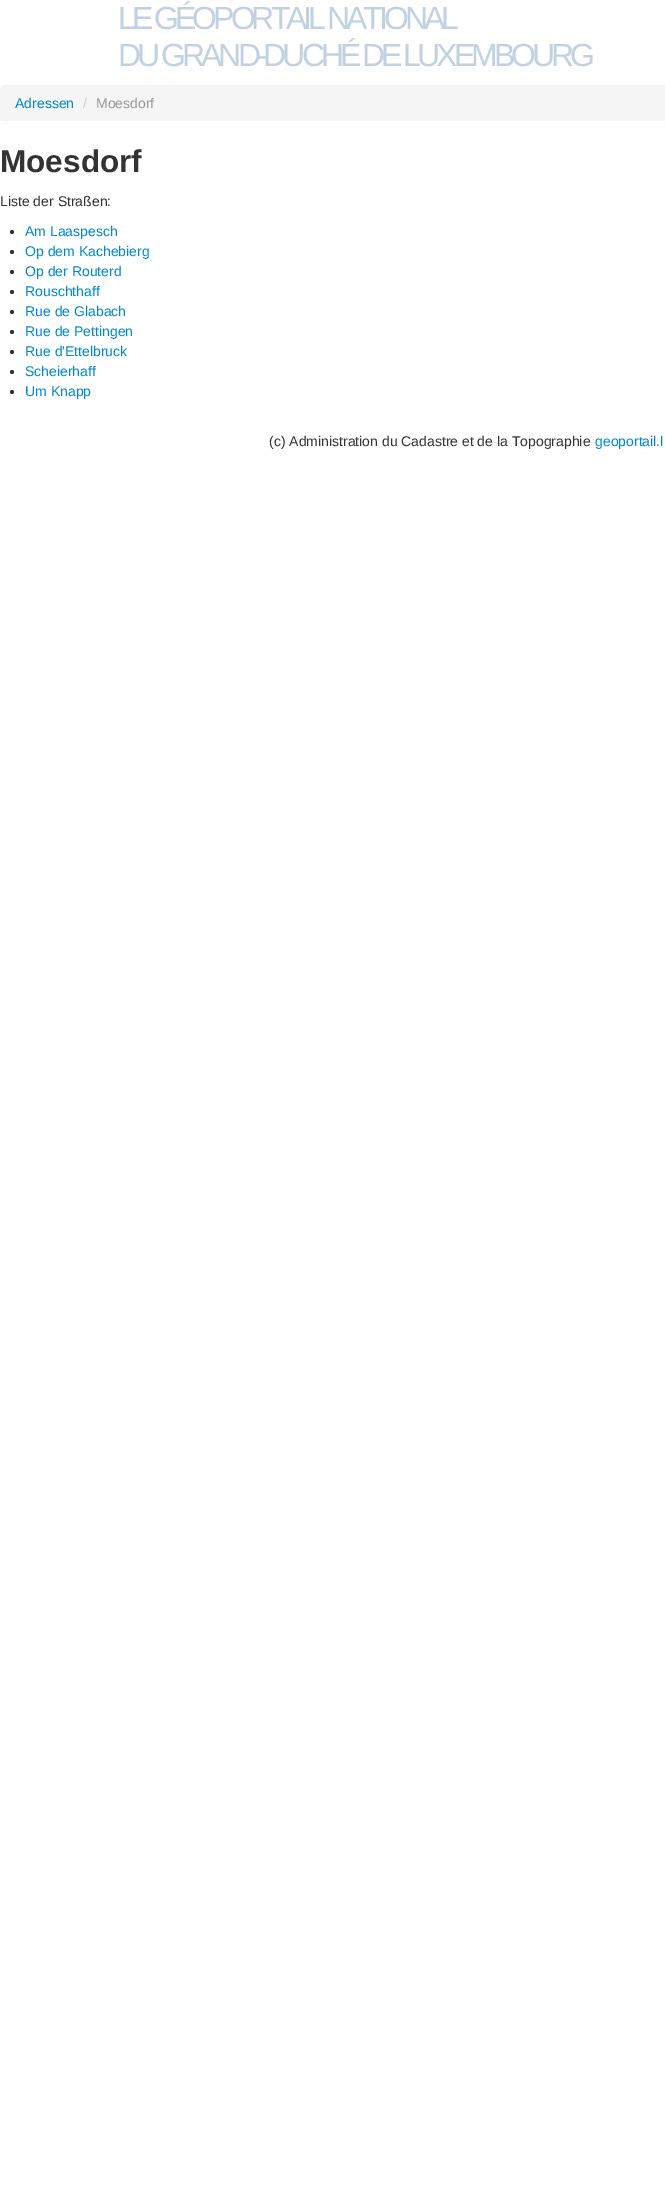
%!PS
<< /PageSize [665 2196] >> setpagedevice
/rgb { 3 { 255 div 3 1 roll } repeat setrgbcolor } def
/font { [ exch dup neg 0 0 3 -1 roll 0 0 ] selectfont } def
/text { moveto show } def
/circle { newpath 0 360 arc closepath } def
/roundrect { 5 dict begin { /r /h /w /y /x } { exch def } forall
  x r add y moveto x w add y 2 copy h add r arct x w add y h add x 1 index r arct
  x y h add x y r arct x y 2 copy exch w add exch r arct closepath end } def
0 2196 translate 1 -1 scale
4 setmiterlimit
255 255 255 rgb
0 0 665 2196 rectfill
245 245 245 rgb
0 85 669 36 4 roundrect fill
51 51 51 rgb
12 232 2 circle fill
12 252 2 circle fill
12 272 2 circle fill
12 292 2 circle fill
12 312 2 circle fill
12 332 2 circle fill
12 352 2 circle fill
12 372 2 circle fill
12 392 2 circle fill
/LiberationSans-Regular 32 font
194 209 225 rgb
118 29 moveto -4 0 (LE GÉOPORTAIL NATIONAL) ashow
118 66 moveto -4 0 (DU GRAND-DUCHÉ DE LUXEMBOURG) ashow
/LiberationSans-Regular 14 font
0 136 204 rgb
(Adressen) 15 108 text
204 204 204 rgb
(/) 83 108 text
153 153 153 rgb
(Moesdorf) 96 108 text
/LiberationSans-Bold 31.5 font
51 51 51 rgb
(Moesdorf) 0 172 text
/LiberationSans-Regular 14 font
(Liste der Straßen:) 0 206 text
0 136 204 rgb
(Am Laaspesch) 25 236 text
(Op dem Kachebierg) 25 256 text
(Op der Routerd) 25 276 text
(Rouschthaff) 25 296 text
(Rue de Glabach) 25 316 text
(Rue de Pettingen) 25 336 text
(Rue d'Ettelbruck) 25 356 text
(Scheierhaff) 25 376 text
(Um Knapp) 25 396 text
51 51 51 rgb
(\(c\) Administration du Cadastre et de la Topographie) 269 446 text
0 136 204 rgb
(geoportail.l) 595 446 text
showpage
